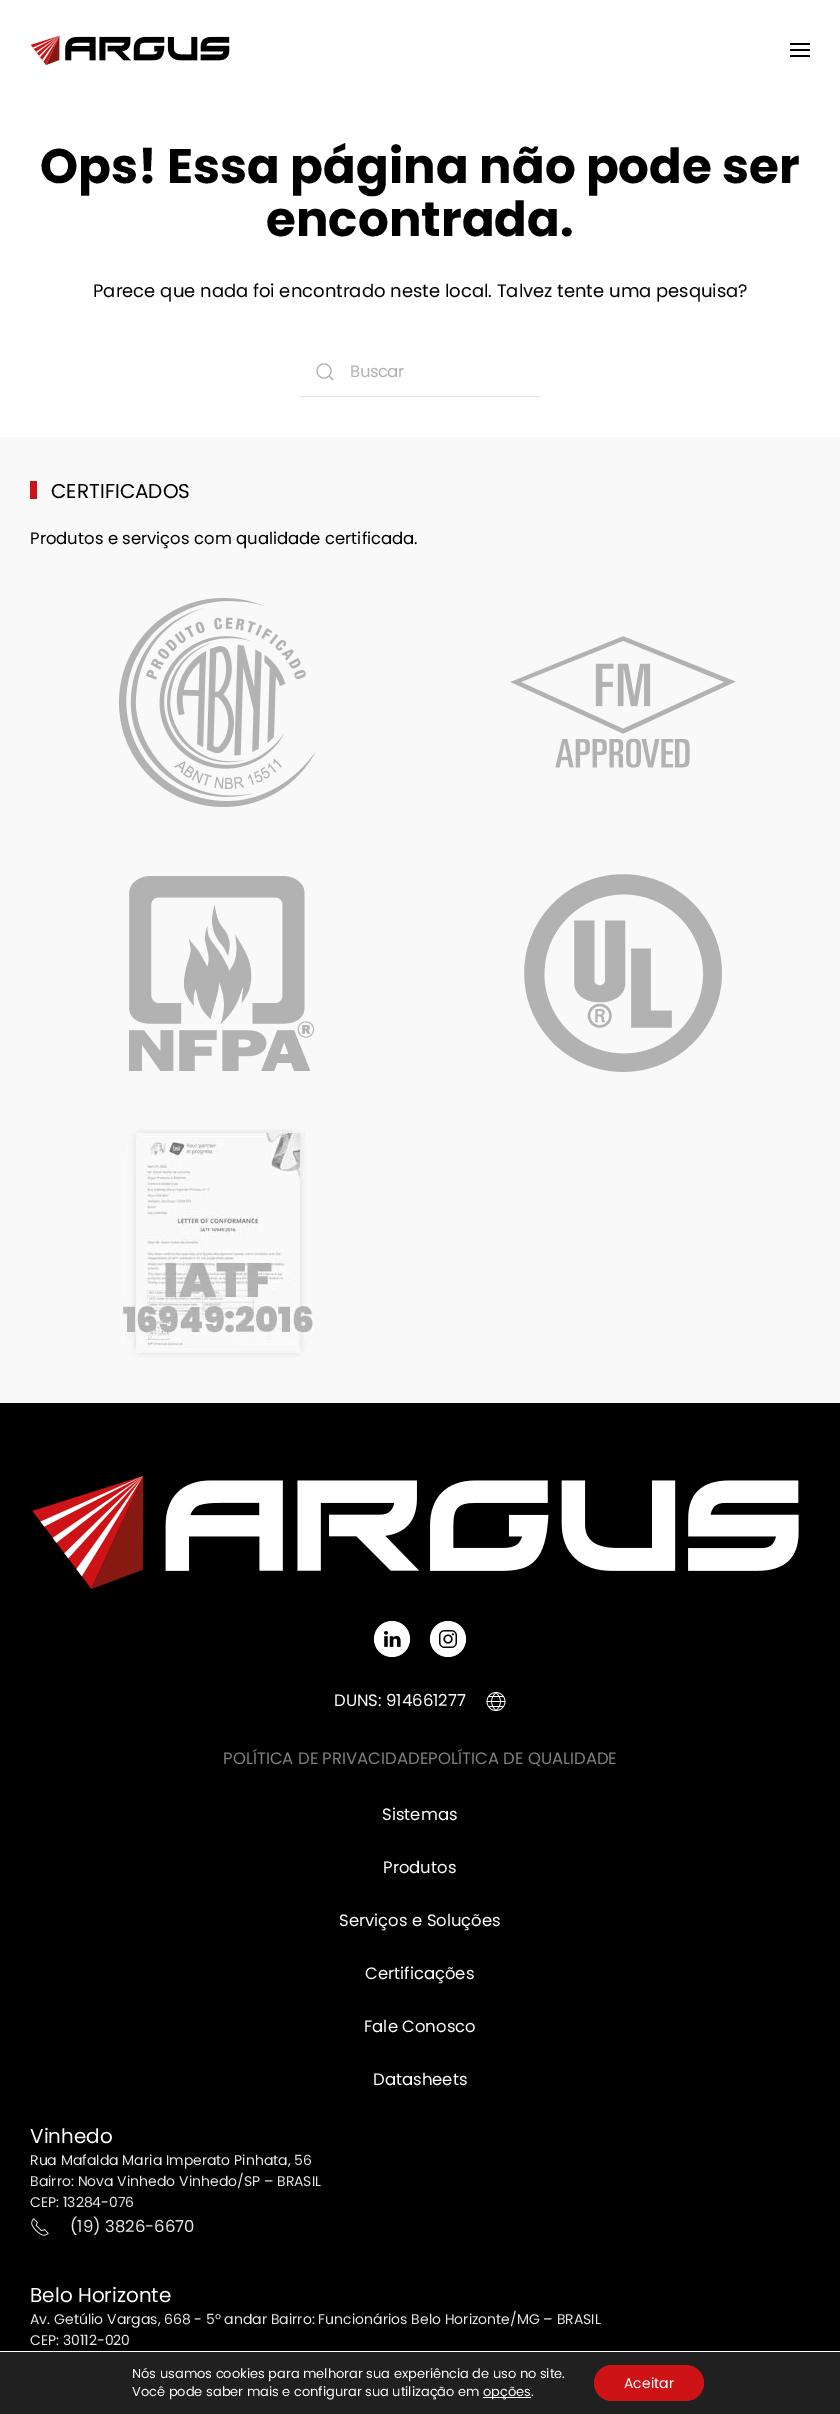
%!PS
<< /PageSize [840 2414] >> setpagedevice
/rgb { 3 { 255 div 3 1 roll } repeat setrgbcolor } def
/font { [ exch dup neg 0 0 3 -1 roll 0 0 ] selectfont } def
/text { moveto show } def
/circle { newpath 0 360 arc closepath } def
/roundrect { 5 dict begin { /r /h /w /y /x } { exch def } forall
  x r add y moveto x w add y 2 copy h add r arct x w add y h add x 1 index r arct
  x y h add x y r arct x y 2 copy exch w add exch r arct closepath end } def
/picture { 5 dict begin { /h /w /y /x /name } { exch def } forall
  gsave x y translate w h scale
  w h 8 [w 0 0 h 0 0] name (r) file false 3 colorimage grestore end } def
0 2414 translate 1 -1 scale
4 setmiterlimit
255 255 255 rgb
0 0 840 2414 rectfill
(img_01.rgb) 30 35 200 30 picture
0 0 0 rgb
790 43 20 2 rectfill
790 49 20 2 rectfill
790 55 20 2 rectfill
178 178 178 rgb
1.1 setlinewidth
324 371 7 circle stroke
329 376 moveto 4 4 rlineto closepath stroke
229 229 229 rgb
300 396 240 1 rectfill
249 249 249 rgb
0 437 840 966 rectfill
205 19 22 rgb
30 481 7 18 rectfill
(img_02.rgb) 119 598 197 209 picture
(img_03.rgb) 510 636 226 132 picture
(img_04.rgb) 129 876 185 195 picture
(img_05.rgb) 524 874 198 198 picture
(img_06.rgb) 122 1129 192 228 picture
0 0 0 rgb
0 1403 840 948 rectfill
(img_07.rgb) 32 1475 767 114 picture
255 255 255 rgb
392 1639 18 circle fill
(img_08.rgb) 384 1631 17 16 picture
448 1639 18 circle fill
(img_09.rgb) 439 1630 18 18 picture
(img_10.rgb) 486 1692 20 19 picture
(img_11.rgb) 31 2218 18 18 picture
32 32 32 rgb
0 2352 840 62 rectfill
255 255 255 rgb
483 2397 48 1 rectfill
205 19 22 rgb
594 2365 110 36 18 roundrect fill
/Poppins-Bold 48.4 font
0 0 0 rgb
(Ops! Essa página não pode ser) 40 183 text
(encontrada.) 266 236 text
/Poppins-Regular 18 font
(Parece que nada foi encontrado neste local. Talvez tente uma pesquisa?) 93 297 text
/Poppins-Regular 16.5 font
178 178 178 rgb
350 377 moveto -0.5 0 (Buscar) ashow
/Poppins-Regular 20 font
0 0 0 rgb
(CERTIFICADOS) 51 498 text
/Poppins-Regular 16.5 font
(Produtos e serviços com qualidade certificada.) 30 544 text
255 255 255 rgb
(DUNS: 914661277) 334 1706 text
128 128 128 rgb
(POLÍTICA DE PRIVACIDADEPOLÍTICA DE QUALIDADE) 223 1764 text
255 255 255 rgb
(Sistemas) 382 1820 text
(Produtos) 383 1873 text
(Serviços e Soluções) 339 1926 text
(Certificações) 365 1979 text
(Fale Conosco) 364 2032 text
(Datasheets) 373 2085 text
/Poppins-Regular 20 font
(Vinhedo) 30 2143 text
/Poppins-Regular 14 font
230 230 230 rgb
(Rua Mafalda Maria Imperato Pinhata, 56) 30 2165 text
(Bairro: Nova Vinhedo Vinhedo/SP – BRASIL) 30 2186 text
(CEP: 13284-076) 30 2207 text
/Poppins-Regular 16.5 font
(\(19\) 3826-6670) 70 2232 text
/Poppins-Regular 20 font
255 255 255 rgb
(Belo Horizonte) 30 2302 text
/Poppins-Regular 14 font
230 230 230 rgb
(Av. Getúlio Vargas, 668 - 5º andar Bairro: Funcionários Belo Horizonte/MG – BRASIL) 30 2324 text
(CEP: 30112-020) 30 2345 text
/Poppins-Regular 13 font
255 255 255 rgb
(Nós usamos cookies para melhorar sua experiência de uso no site.) 132 2378 text
(Você pode saber mais e configurar sua utilização em) 132 2396 text
(opções.) 483 2396 text
/Poppins-Regular 14 font
(Aceitar) 624 2388 text
showpage
